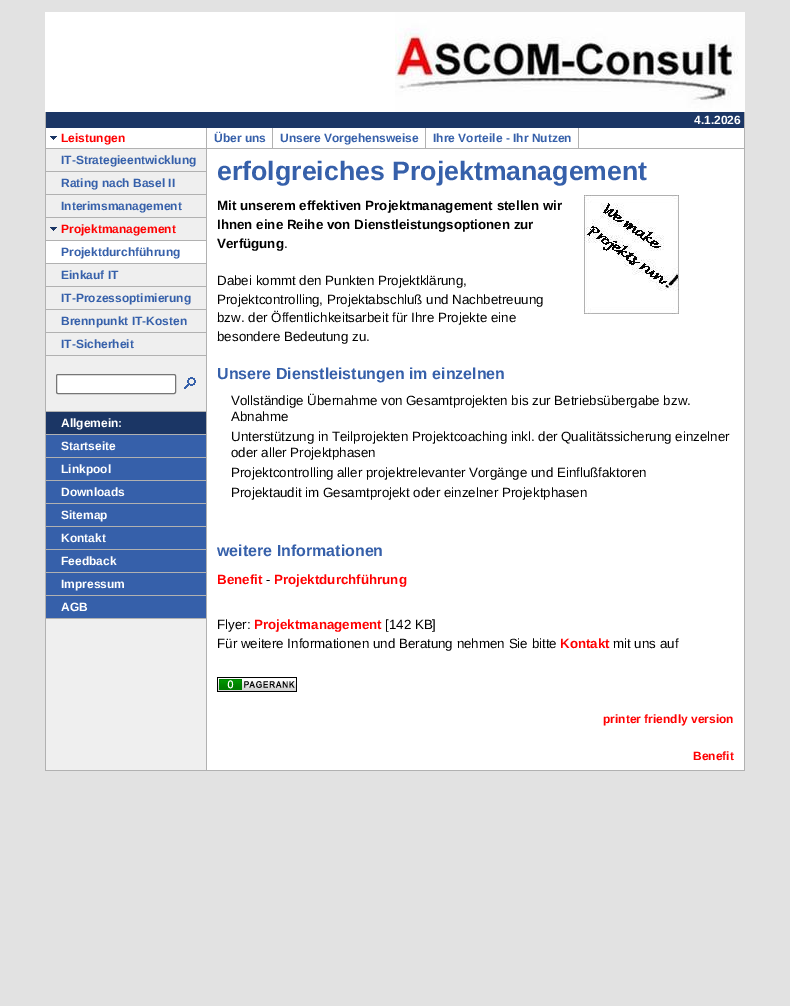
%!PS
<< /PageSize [790 1006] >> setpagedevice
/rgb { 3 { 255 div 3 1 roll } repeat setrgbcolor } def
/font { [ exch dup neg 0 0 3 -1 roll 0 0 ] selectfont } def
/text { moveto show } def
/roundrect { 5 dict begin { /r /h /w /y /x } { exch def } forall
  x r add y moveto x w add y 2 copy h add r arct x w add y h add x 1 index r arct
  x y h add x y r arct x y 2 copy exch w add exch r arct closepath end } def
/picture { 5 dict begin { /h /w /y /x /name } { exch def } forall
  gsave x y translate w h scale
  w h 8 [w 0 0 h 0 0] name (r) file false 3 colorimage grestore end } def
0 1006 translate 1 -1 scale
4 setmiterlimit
226 226 226 rgb
0 0 790 1006 rectfill
239 239 239 rgb
46 149 160 621 rectfill
255 255 255 rgb
45 12 350 100 rectfill
(img_01.rgb) 395 12 350 100 picture
177 177 177 rgb
45 112 1 36 rectfill
27 54 101 rgb
46 112 698 16 rectfill
177 177 177 rgb
744 112 1 36 rectfill
255 255 255 rgb
46 128 160 20 rectfill
(img_02.rgb) 50 136 7 4 picture
177 177 177 rgb
206 128 1 20 rectfill
255 255 255 rgb
207 128 537 20 rectfill
177 177 177 rgb
272 128 1 20 rectfill
425 128 1 20 rectfill
578 128 1 20 rectfill
45 148 700 1 rectfill
45 149 1 621 rectfill
46 171 160 1 rectfill
46 194 160 1 rectfill
46 217 160 1 rectfill
(img_03.rgb) 50 227 7 4 picture
46 240 160 1 rectfill
255 255 255 rgb
46 241 160 22 rectfill
177 177 177 rgb
46 263 160 1 rectfill
46 286 160 1 rectfill
46 309 160 1 rectfill
46 332 160 1 rectfill
46 355 160 1 rectfill
255 255 255 rgb
56.5 374.5 119 19 1.5 roundrect gsave fill grestore
118 118 118 rgb
stroke
(img_04.rgb) 184 377 12 12 picture
177 177 177 rgb
46 411 160 1 rectfill
27 54 101 rgb
46 412 160 22 rectfill
177 177 177 rgb
46 434 160 1 rectfill
54 96 170 rgb
46 435 160 22 rectfill
177 177 177 rgb
46 457 160 1 rectfill
54 96 170 rgb
46 458 160 22 rectfill
177 177 177 rgb
46 480 160 1 rectfill
54 96 170 rgb
46 481 160 22 rectfill
177 177 177 rgb
46 503 160 1 rectfill
54 96 170 rgb
46 504 160 22 rectfill
177 177 177 rgb
46 526 160 1 rectfill
54 96 170 rgb
46 527 160 22 rectfill
177 177 177 rgb
46 549 160 1 rectfill
54 96 170 rgb
46 550 160 22 rectfill
177 177 177 rgb
46 572 160 1 rectfill
54 96 170 rgb
46 573 160 22 rectfill
177 177 177 rgb
46 595 160 1 rectfill
54 96 170 rgb
46 596 160 22 rectfill
177 177 177 rgb
46 618 160 1 rectfill
206 149 1 621 rectfill
255 255 255 rgb
207 149 537 621 rectfill
(img_05.rgb) 584 195 95 119 picture
(img_06.rgb) 217 677 80 15 picture
177 177 177 rgb
744 149 1 621 rectfill
45 770 700 1 rectfill
/LiberationSans-Bold 12 font
255 255 255 rgb
(4.1.2026) 694 124 text
255 0 1 rgb
(Leistungen) 61 142 text
54 96 170 rgb
(Über uns) 214 142 text
(Unsere Vorgehensweise) 280 142 text
(Ihre Vorteile - Ihr Nutzen) 433 142 text
(IT-Strategieentwicklung) 61 164 text
(Rating nach Basel II) 61 187 text
(Interimsmanagement) 61 210 text
255 0 1 rgb
(Projektmanagement) 61 233 text
54 96 170 rgb
(Projektdurchführung) 61 256 text
(Einkauf IT) 61 279 text
(IT-Prozessoptimierung) 61 302 text
(Brennpunkt IT-Kosten) 61 325 text
(IT-Sicherheit) 61 348 text
255 255 255 rgb
(Allgemein:) 61 427 text
(Startseite) 61 450 text
(Linkpool) 61 473 text
(Downloads) 61 496 text
(Sitemap) 61 519 text
(Kontakt) 61 542 text
(Feedback) 61 565 text
(Impressum) 61 588 text
(AGB) 61 611 text
/LiberationSans-Bold 26.7 font
54 96 170 rgb
(erfolgreiches Projektmanagement) 217 180 text
/LiberationSans-Bold 13.35 font
0 0 0 rgb
(Mit unserem effektiven Projektmanagement stellen wir) 217 210 text
(Ihnen eine Reihe von Dienstleistungsoptionen zur) 217 229 text
(Verfügung) 217 248 text
/LiberationSans-Regular 13.35 font
(.) 284 248 text
(Dabei kommt den Punkten Projektklärung,) 217 285 text
(Projektcontrolling, Projektabschluß und Nachbetreuung) 217 304 text
(bzw. der Öffentlichkeitsarbeit für Ihre Projekte eine) 217 322 text
(besondere Bedeutung zu.) 217 341 text
/LiberationSans-Bold 16 font
54 96 170 rgb
(Unsere Dienstleistungen im einzelnen) 217 379 text
/LiberationSans-Regular 13.35 font
0 0 0 rgb
(Vollständige Übernahme von Gesamtprojekten bis zur Betriebsübergabe bzw.) 231 405 text
(Abnahme) 231 421 text
(Unterstützung in Teilprojekten Projektcoaching inkl. der Qualitätssicherung einzelner) 231 441 text
(oder aller Projektphasen) 231 457 text
(Projektcontrolling aller projektrelevanter Vorgänge und Einflußfaktoren) 231 477 text
(Projektaudit im Gesamtprojekt oder einzelner Projektphasen) 231 497 text
/LiberationSans-Bold 16 font
54 96 170 rgb
(weitere Informationen) 217 556 text
/LiberationSans-Bold 13.35 font
255 0 1 rgb
(Benefit) 217 584 text
/LiberationSans-Regular 13.35 font
0 0 0 rgb
(-) 266 584 text
/LiberationSans-Bold 13.35 font
255 0 1 rgb
(Projektdurchführung) 274 584 text
/LiberationSans-Regular 13.35 font
0 0 0 rgb
(Flyer:) 217 629 text
/LiberationSans-Bold 13.35 font
255 0 1 rgb
(Projektmanagement) 254 629 text
/LiberationSans-Regular 13.35 font
0 0 0 rgb
([142 KB]) 385 629 text
(Für weitere Informationen und Beratung nehmen Sie bitte) 217 648 text
/LiberationSans-Bold 13.35 font
255 0 1 rgb
(Kontakt) 560 648 text
/LiberationSans-Regular 13.35 font
0 0 0 rgb
(mit uns auf) 613 648 text
/LiberationSans-Bold 12 font
255 0 1 rgb
(printer friendly version) 603 723 text
(Benefit) 693 760 text
showpage
